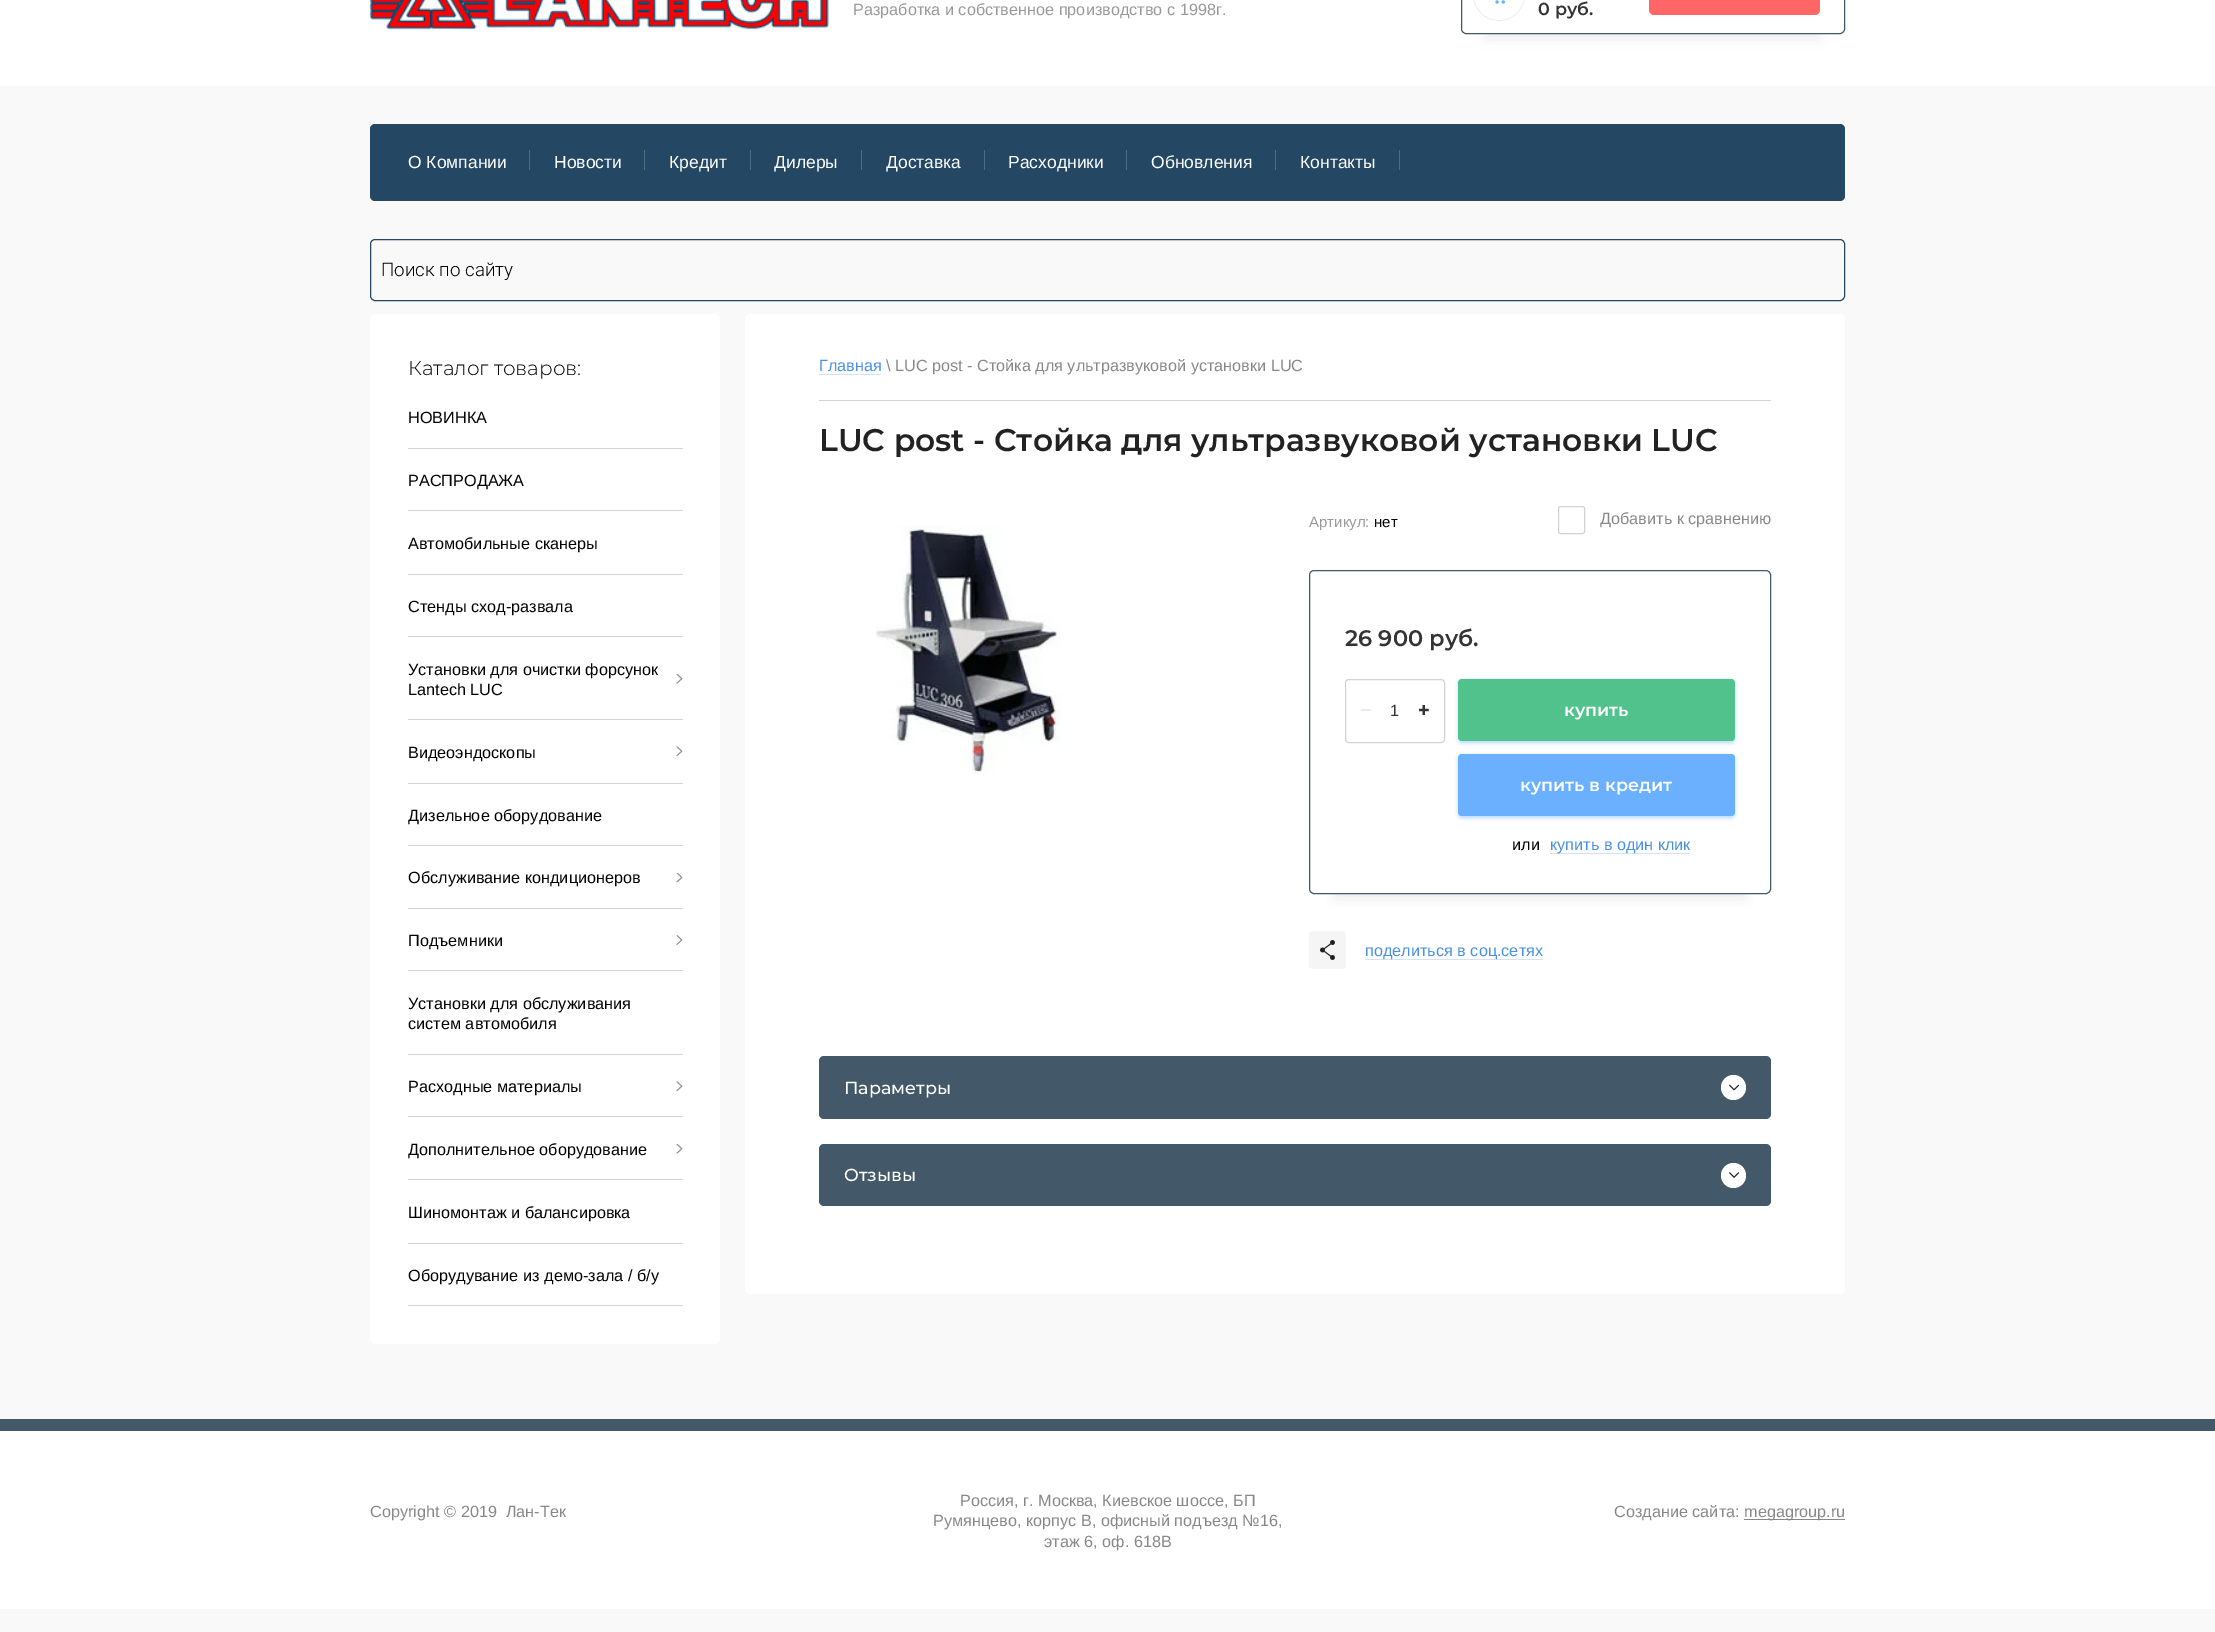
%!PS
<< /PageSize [2215 1632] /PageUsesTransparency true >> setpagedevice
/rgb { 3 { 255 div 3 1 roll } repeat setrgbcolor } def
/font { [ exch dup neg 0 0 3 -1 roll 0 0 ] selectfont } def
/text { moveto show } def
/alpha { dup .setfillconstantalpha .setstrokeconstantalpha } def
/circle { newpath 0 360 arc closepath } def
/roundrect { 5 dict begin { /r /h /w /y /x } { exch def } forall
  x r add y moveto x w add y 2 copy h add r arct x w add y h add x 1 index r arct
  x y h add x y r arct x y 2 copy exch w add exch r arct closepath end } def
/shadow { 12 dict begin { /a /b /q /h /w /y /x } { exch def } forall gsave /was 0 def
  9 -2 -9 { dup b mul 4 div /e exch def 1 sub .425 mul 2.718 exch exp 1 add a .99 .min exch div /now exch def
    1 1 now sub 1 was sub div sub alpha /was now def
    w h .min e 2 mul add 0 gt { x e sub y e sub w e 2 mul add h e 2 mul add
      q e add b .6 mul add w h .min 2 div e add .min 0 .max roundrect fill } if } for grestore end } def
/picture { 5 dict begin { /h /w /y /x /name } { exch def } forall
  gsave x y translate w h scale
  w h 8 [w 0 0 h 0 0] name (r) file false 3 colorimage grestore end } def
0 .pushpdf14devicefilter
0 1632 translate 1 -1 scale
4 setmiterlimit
249 249 249 rgb
0 0 2215 1632 rectfill
255 255 255 rgb
0 0 2215 86 rectfill
(img_01.rgb) 370 0 459 30 picture
138 138 138 rgb
1486 14 334 25 0 7.5 0.16 shadow
255 255 255 rgb
1461.5 -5.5 383 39 4.5 roundrect gsave fill grestore
67 88 104 rgb
stroke
(img_02.rgb) 1495 0 10 4 picture
239 239 239 rgb
1473.5 -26.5 51 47 25.5 roundrect stroke
255 102 102 rgb
1649 -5 171 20 5 roundrect fill
36 72 99 rgb
370 124 1475 77 5 roundrect fill
80 109 130 rgb
529 150 1 20 rectfill
644 150 1 20 rectfill
750 150 1 20 rectfill
861 150 1 20 rectfill
984 150 1 20 rectfill
1126 150 1 20 rectfill
1275 150 1 20 rectfill
1399 150 1 20 rectfill
36 72 99 rgb
370.5 239.5 1474 61 4.5 roundrect stroke
255 255 255 rgb
370 314 350 1030 5 roundrect fill
211 211 211 rgb
408 448 275 1 rectfill
408 510 275 1 rectfill
408 574 275 1 rectfill
408 636 275 1 rectfill
(img_03.rgb) 676 674 7 10 picture
408 719 275 1 rectfill
(img_04.rgb) 676 746 7 10 picture
408 783 275 1 rectfill
408 845 275 1 rectfill
(img_05.rgb) 676 873 7 10 picture
408 908 275 1 rectfill
(img_06.rgb) 676 935 7 10 picture
408 970 275 1 rectfill
408 1054 275 1 rectfill
(img_04.rgb) 676 1081 7 10 picture
408 1116 275 1 rectfill
(img_03.rgb) 676 1144 7 10 picture
408 1179 275 1 rectfill
408 1243 275 1 rectfill
408 1305 275 1 rectfill
255 255 255 rgb
745 314 1100 980 5 roundrect fill
211 211 211 rgb
819 400 952 1 rectfill
210 227 248 rgb
819 374 62 1 rectfill
(img_07.rgb) 876 525 185 250 picture
211 211 211 rgb
1558.5 506.5 26 27 2 roundrect stroke
gsave
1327 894 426 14 rectclip
138 138 138 rgb
1334 625 412 274 0 7.5 0.16 shadow
grestore
67 88 104 rgb
1309.5 570.5 461 323 4.5 roundrect stroke
211 211 211 rgb
1345.5 679.5 99 63 3.5 roundrect stroke
235 235 235 rgb
1361 709 10 2 rectfill
(img_08.rgb) 1419 705 10 10 picture
106 176 255 rgb
1458 680 277 63 4 2 0.5 shadow
81 194 140 rgb
1458 679 277 62 4 roundrect fill
106 176 255 rgb
1458 755 277 63 4 2 0.5 shadow
1458 754 277 62 4 roundrect fill
245 245 245 rgb
1309 931 37 38 4 roundrect fill
(img_09.rgb) 1320 940 15 20 picture
67 88 104 rgb
819 1056 952 63 5 roundrect fill
255 255 255 rgb
1733.5 1087.5 12.5 circle fill
(img_10.rgb) 1729 1084 11 7 picture
67 88 104 rgb
819 1144 952 62 5 roundrect fill
255 255 255 rgb
1733.5 1175.5 12.5 circle fill
(img_11.rgb) 1729 1172 11 6 picture
0 1431 2215 178 rectfill
67 88 104 rgb
0 1419 2215 12 rectfill
136 136 136 rgb
1744 1519 101 1 rectfill
/LiberationSans-Regular 16.25 font
153 153 153 rgb
(Разработка и собственное производство с 1998г.) 853 15 text
/Montserrat-SemiBold 17.5 font
52 52 52 rgb
(0 руб.) 1538 15 text
/LiberationSans-Regular 17.5 font
255 255 255 rgb
(О Компании) 408 168 text
(Новости) 554 168 text
(Кредит) 669 168 text
(Дилеры) 774 168 text
(Доставка) 886 168 text
(Расходники) 1008 168 text
(Обновления) 1151 168 text
(Контакты) 1300 168 text
/Roboto-Light 18.75 font
0 0 0 rgb
(Поиск по сайту) 381 276 text
/Montserrat-Light 20 font
(Каталог товаров:) 408 375 text
/LiberationSans-Regular 16.25 font
(НОВИНКА) 408 423 text
(РАСПРОДАЖА) 408 486 text
(Автомобильные сканеры) 408 549 text
(Стенды сход-развала) 408 612 text
(Установки для очистки форсунок) 408 675 text
(Lantech LUC) 408 695 text
(Видеоэндоскопы) 408 758 text
(Дизельное оборудование) 408 821 text
(Обслуживание кондиционеров) 408 883 text
(Подъемники) 408 946 text
(Установки для обслуживания) 408 1009 text
(систем автомобиля) 408 1029 text
(Расходные материалы) 408 1092 text
(Дополнительное оборудование) 408 1155 text
(Шиномонтаж и балансировка) 408 1218 text
(Оборудувание из демо-зала / б/у) 408 1281 text
74 144 226 rgb
(Главная) 819 371 text
136 136 136 rgb
(\\ LUC post - Стойка для ультразвуковой установки LUC) 886 371 text
/Montserrat-SemiBold 31.25 font
34 34 34 rgb
(LUC post - Стойка для ультразвуковой установки LUC) 819 451 text
/LiberationSans-Regular 15 font
153 153 153 rgb
(Артикул:) 1309 527 text
0 0 0 rgb
(нет) 1374 527 text
/LiberationSans-Regular 16.25 font
136 136 136 rgb
(Добавить к сравнению) 1600 524 text
/Montserrat-SemiBold 22.5 font
52 52 52 rgb
(26 900 руб.) 1345 646 text
/LiberationSans-Regular 16.25 font
(1) 1390 716 text
/Montserrat-SemiBold 17.5 font
255 255 255 rgb
(купить) 1564 716 text
(купить в кредит) 1520 791 text
/LiberationSans-Regular 16.25 font
0 0 0 rgb
(или) 1512 850 text
74 144 226 rgb
(купить в один клик) 1550 850 text
0.25 alpha
1550 853 140 1 rectfill
1 alpha
(поделиться в соц.сетях) 1365 956 text
0.25 alpha
1365 959 178 1 rectfill
/Montserrat-Medium 17.5 font
1 alpha
255 255 255 rgb
(Параметры) 844 1094 text
(Отзывы) 844 1181 text
/LiberationSans-Regular 16.25 font
136 136 136 rgb
(Copyright © 2019  Лан-Тек) 370 1517 text
(Россия, г. Москва, Киевское шоссе, БП) 960 1506 text
(Румянцево, корпус В, офисный подъезд №16,) 933 1526 text
(этаж 6, оф. 618В) 1044 1547 text
(Создание сайта:) 1614 1517 text
(megagroup.ru) 1744 1517 text
.poppdf14devicefilter showpage
